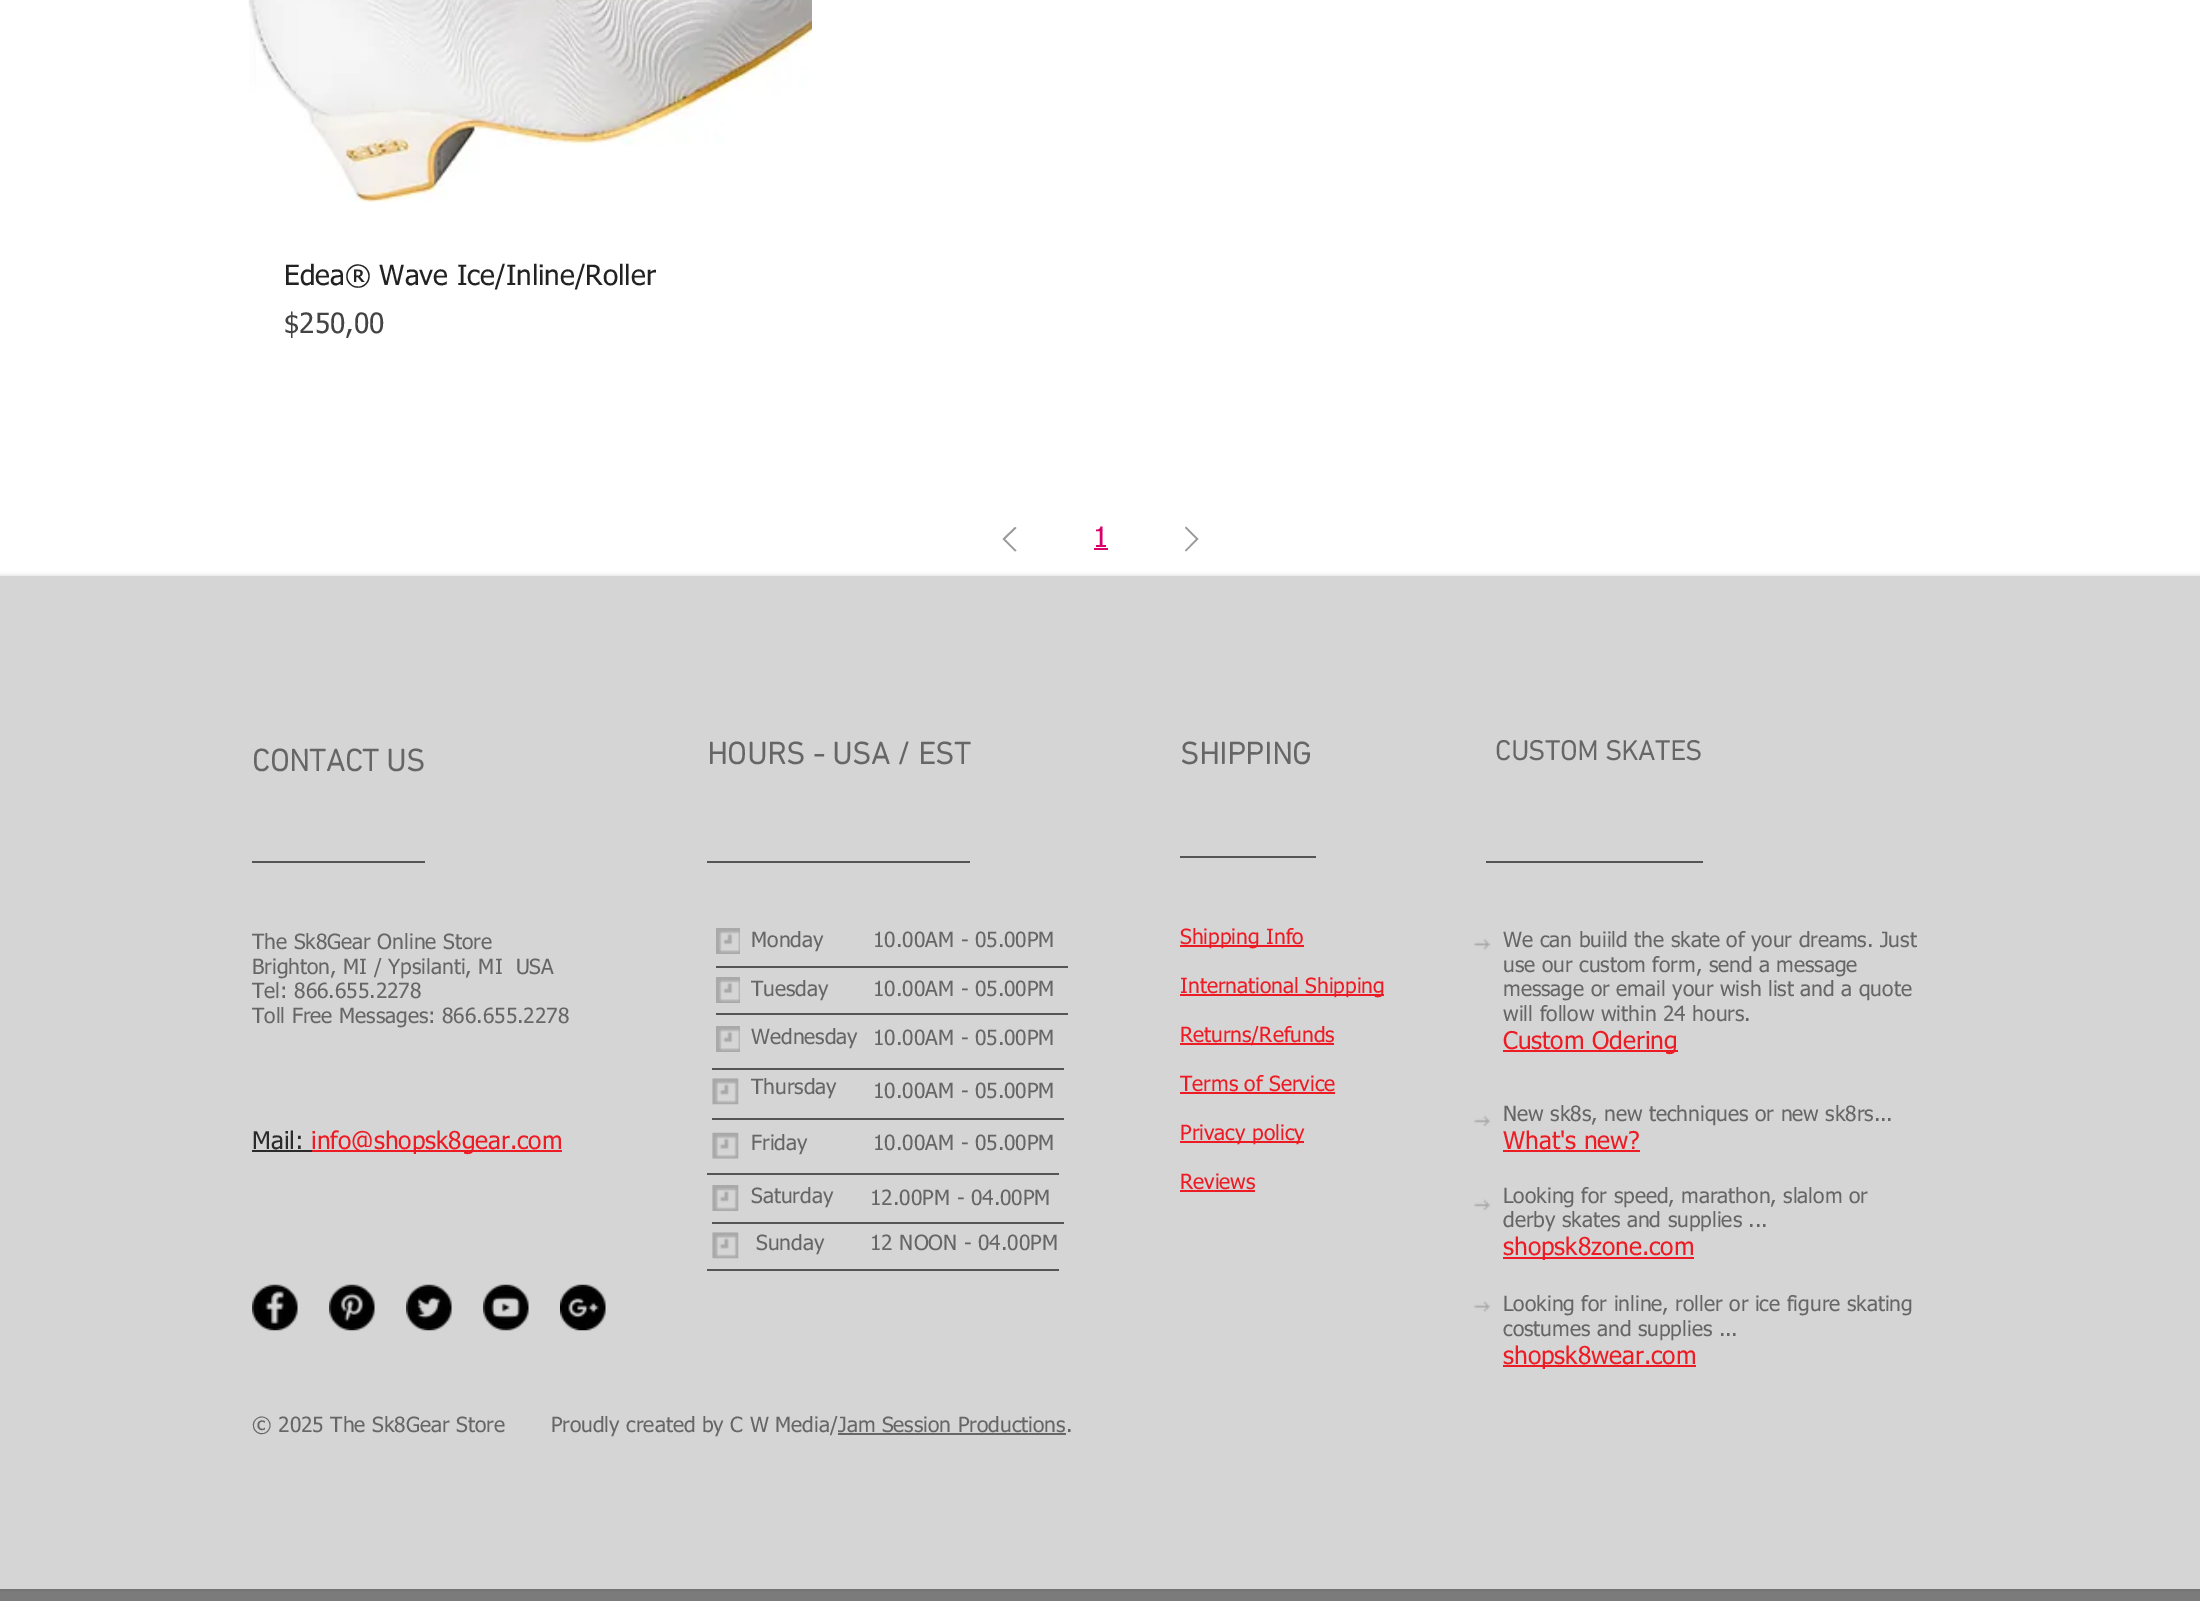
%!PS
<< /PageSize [2200 1601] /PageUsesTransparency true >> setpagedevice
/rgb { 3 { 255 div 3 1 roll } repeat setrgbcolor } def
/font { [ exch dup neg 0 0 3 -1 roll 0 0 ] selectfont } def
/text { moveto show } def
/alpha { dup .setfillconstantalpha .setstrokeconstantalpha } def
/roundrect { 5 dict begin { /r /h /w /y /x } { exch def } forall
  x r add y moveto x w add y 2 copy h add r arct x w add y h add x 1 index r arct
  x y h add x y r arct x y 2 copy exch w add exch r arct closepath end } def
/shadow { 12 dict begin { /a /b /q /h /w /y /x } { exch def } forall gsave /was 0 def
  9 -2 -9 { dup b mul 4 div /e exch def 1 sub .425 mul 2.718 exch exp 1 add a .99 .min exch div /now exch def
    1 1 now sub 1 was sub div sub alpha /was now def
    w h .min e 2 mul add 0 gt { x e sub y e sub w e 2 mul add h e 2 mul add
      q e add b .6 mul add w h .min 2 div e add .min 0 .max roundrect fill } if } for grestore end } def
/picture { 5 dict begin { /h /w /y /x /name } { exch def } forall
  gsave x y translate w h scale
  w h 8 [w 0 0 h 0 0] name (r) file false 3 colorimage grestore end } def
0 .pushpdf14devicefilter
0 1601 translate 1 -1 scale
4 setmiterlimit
255 255 255 rgb
0 0 2200 1601 rectfill
(img_01.rgb) 248 0 564 202 picture
153 153 153 rgb
1015 527 moveto 1.5 1 rlineto -11.5 11 rlineto 11.5 11.5 rlineto -1.5 1 rlineto -12.5 -12.5 rlineto closepath eofill
217 0 108 rgb
1094 548 14 2 rectfill
153 153 153 rgb
1186 526.5 moveto 12.5 12.5 rlineto -12.5 12.5 rlineto -1 -1 rlineto 11 -11.5 rlineto -11 -11 rlineto closepath eofill
123 123 123 rgb
0 1589 2200 12 rectfill
0 0 0 rgb
0 576 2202 1013 0 2.5 0.15 shadow
213 213 213 rgb
0 576 2200 1013 rectfill
85 85 85 rgb
1180 856 136 2 rectfill
252 861 173 2 rectfill
707 861 263 2 rectfill
1486 861 217 2 rectfill
(img_02.rgb) 716 928 24 26 picture
237 28 36 rgb
1180 945 124 2 rectfill
1180 994 204 2 rectfill
1180 1043 154 2 rectfill
1180 1092 155 2 rectfill
1180 1141 124 2 rectfill
1180 1190 75 2 rectfill
(img_03.rgb) 1473 938 18 12 picture
1503 1050 175 2 rectfill
85 85 85 rgb
716 966 352 2 rectfill
(img_02.rgb) 716 977 24 26 picture
716 1013 352 2 rectfill
(img_02.rgb) 716 1026 24 26 picture
712 1068 352 2 rectfill
(img_04.rgb) 712 1078 27 27 picture
712 1118 352 2 rectfill
(img_05.rgb) 1473 1115 18 12 picture
237 28 36 rgb
1503 1150 137 2 rectfill
43 43 43 rgb
252 1150 60 2 rectfill
237 28 36 rgb
312 1150 250 2 rectfill
(img_06.rgb) 712 1132 27 27 picture
85 85 85 rgb
707 1173 352 2 rectfill
(img_07.rgb) 712 1185 27 26 picture
(img_05.rgb) 1473 1199 18 12 picture
237 28 36 rgb
1503 1257 191 2 rectfill
85 85 85 rgb
712 1222 352 2 rectfill
(img_04.rgb) 712 1232 27 27 picture
707 1269 352 2 rectfill
(img_08.rgb) 252 1284 46 47 picture
(img_09.rgb) 329 1284 46 47 picture
(img_10.rgb) 406 1284 46 47 picture
(img_11.rgb) 483 1284 46 47 picture
(img_12.rgb) 560 1284 46 47 picture
(img_13.rgb) 1473 1301 18 11 picture
237 28 36 rgb
1503 1365 193 2 rectfill
102 102 102 rgb
838 1433 228 2 rectfill
/tahoma-Regular 28 font
34 34 34 rgb
(Edea® Wave Ice/Inline/Roller) 284 285 text
68 68 68 rgb
($250,00) 284 333 text
217 0 108 rgb
(1) 1093 547 text
/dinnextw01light-Bold 31.5 font
102 102 102 rgb
(CONTACT US) 252 771 text
(HOURS - USA / EST) 707 764 text
(SHIPPING) 1180 764 text
/dinnextw01light-Bold 28 font
(CUSTOM SKATES) 1495 760 text
/tahoma-Regular 21 font
(The Sk8Gear Online Store) 252 949 text
(Brighton, MI / Ypsilanti, MI  USA) 252 974 text
(Tel: 866.655.2278) 252 998 text
(Toll Free Messages: 866.655.2278) 252 1023 text
(Monday) 751 947 text
(10.00AM - 05.00PM) 873 947 text
237 28 36 rgb
(Shipping Info) 1180 944 text
(International Shipping) 1180 993 text
(Returns/Refunds) 1180 1042 text
(Terms of Service) 1180 1091 text
(Privacy policy) 1180 1140 text
(Reviews) 1180 1189 text
102 102 102 rgb
(We can buiild the skate of your dreams. Just) 1503 947 text
(use our custom form, send a message) 1503 972 text
(message or email your wish list and a quote) 1503 996 text
(will follow within 24 hours.) 1503 1021 text
/tahoma-Regular 24.5 font
237 28 36 rgb
(Custom Odering) 1503 1049 text
/tahoma-Regular 21 font
102 102 102 rgb
(Tuesday) 751 996 text
(10.00AM - 05.00PM) 873 996 text
(Wednesday) 751 1044 text
(10.00AM - 05.00PM) 873 1045 text
(Thursday) 751 1094 text
(10.00AM - 05.00PM) 873 1098 text
(New sk8s, new techniques or new sk8rs...) 1503 1121 text
/tahoma-Regular 24.5 font
237 28 36 rgb
(What's new?) 1503 1149 text
43 43 43 rgb
(Mail:) 252 1149 text
237 28 36 rgb
(info@shopsk8gear.com) 311 1149 text
/tahoma-Regular 21 font
102 102 102 rgb
(Friday) 751 1150 text
(10.00AM - 05.00PM) 873 1150 text
(Saturday) 751 1203 text
(12.00PM - 04.00PM) 870 1205 text
(Looking for speed, marathon, slalom or) 1503 1203 text
(derby skates and supplies ...) 1503 1227 text
/tahoma-Regular 24.5 font
237 28 36 rgb
(shopsk8zone.com) 1503 1255 text
/tahoma-Regular 21 font
102 102 102 rgb
(Sunday) 756 1250 text
(12 NOON - 04.00PM) 870 1250 text
(Looking for inline, roller or ice figure skating) 1503 1311 text
(costumes and supplies ...) 1503 1336 text
/tahoma-Regular 24.5 font
237 28 36 rgb
(shopsk8wear.com) 1503 1364 text
/tahoma-Regular 21 font
102 102 102 rgb
(© 2025 The Sk8Gear Store       Proudly created by C W Media/Jam Session Productions.) 252 1432 text
.poppdf14devicefilter showpage
